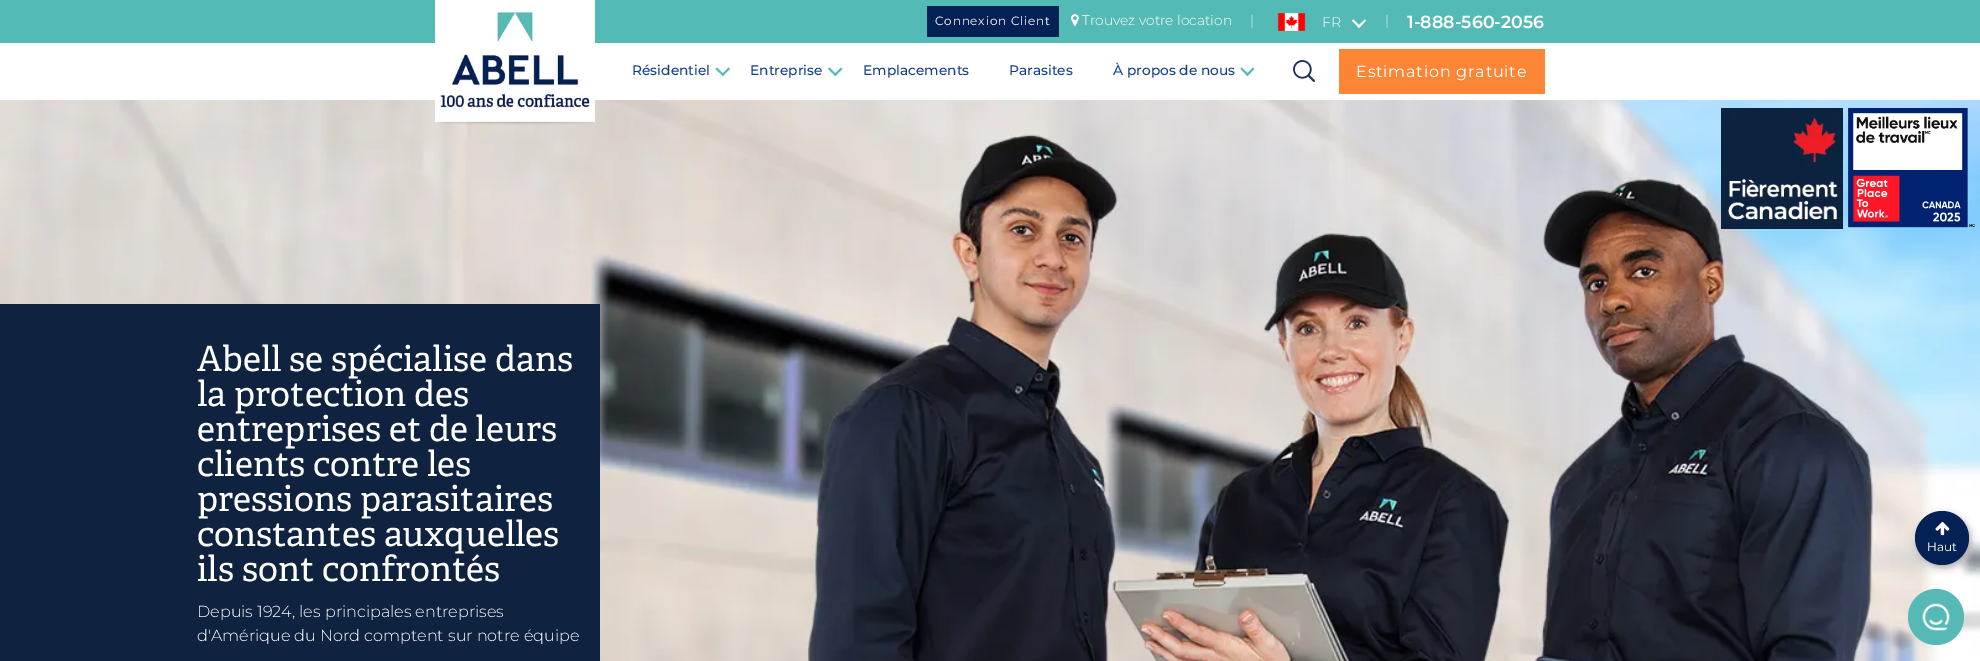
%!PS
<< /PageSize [1980 661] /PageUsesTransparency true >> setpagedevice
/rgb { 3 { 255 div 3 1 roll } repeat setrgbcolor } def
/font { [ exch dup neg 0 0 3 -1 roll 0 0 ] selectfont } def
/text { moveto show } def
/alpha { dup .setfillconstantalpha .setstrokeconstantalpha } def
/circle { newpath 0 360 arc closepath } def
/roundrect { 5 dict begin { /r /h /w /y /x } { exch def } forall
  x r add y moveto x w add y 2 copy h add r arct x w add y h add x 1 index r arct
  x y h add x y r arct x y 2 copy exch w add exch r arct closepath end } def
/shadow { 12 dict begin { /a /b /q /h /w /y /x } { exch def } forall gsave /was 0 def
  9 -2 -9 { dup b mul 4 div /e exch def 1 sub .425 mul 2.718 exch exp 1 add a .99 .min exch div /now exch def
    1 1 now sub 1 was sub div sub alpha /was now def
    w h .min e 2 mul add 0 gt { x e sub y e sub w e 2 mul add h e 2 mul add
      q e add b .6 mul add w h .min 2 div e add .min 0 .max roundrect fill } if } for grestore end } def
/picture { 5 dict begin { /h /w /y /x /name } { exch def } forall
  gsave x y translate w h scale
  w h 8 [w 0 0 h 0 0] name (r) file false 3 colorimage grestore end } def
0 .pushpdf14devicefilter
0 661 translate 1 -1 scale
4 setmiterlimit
255 255 255 rgb
0 0 1980 661 rectfill
84 186 182 rgb
0 0 1980 43 rectfill
(img_07.rgb) 0 100 1980 561 picture
(img_01.rgb) 435 0 160 125 picture
3 33 84 rgb
927 6 132 31 rectfill
(img_02.rgb) 1071 14 8 12 picture
(img_03.rgb) 1277 13 29 18 picture
255 255 255 rgb
1365 19.5 moveto 1 1 rlineto -7 7.5 rlineto -1.5 -1.5 rlineto closepath fill
1353.5 19.5 moveto 7 7 rlineto -1.5 1.5 rlineto -7 -7.5 rlineto closepath fill
84 186 182 rgb
728.5 67.5 moveto 1.5 1.5 rlineto -7 7 rlineto -1.5 -1.5 rlineto closepath fill
717 67.5 moveto 7 7 rlineto -1 1.5 rlineto -7.5 -7 rlineto closepath fill
841 67.5 moveto 1.5 1.5 rlineto -7 7 rlineto -1.5 -1.5 rlineto closepath fill
829.5 67.5 moveto 7 7 rlineto -1 1.5 rlineto -7.5 -7 rlineto closepath fill
1253 67.5 moveto 1.5 1.5 rlineto -7 7 rlineto -1.5 -1.5 rlineto closepath fill
1241.5 67.5 moveto 7.5 7 rlineto -1.5 1.5 rlineto -7 -7 rlineto closepath fill
(img_04.rgb) 1293 60 22 22 picture
253 133 54 rgb
1339 49 206 45 rectfill
(img_05.rgb) 1721 108 122 121 picture
(img_06.rgb) 1848 108 127 120 picture
15 34 64 rgb
0 304 600 357 rectfill
176 171 171 rgb
1917 514 54 54 27 3.5 1 shadow
3 33 84 rgb
1942 538 27 circle fill
(img_08.rgb) 1935 522 15 14 picture
87 185 181 rgb
1936 617 28 circle fill
(img_09.rgb) 1922 603 28 28 picture
/Montserrat-Regular 12 font
255 255 255 rgb
935 25 moveto 0.8 0 (Connexion Client) ashow
/Montserrat-Light 13.75 font
(Trouvez votre location) 1082 25 text
(|) 1250 25 text
/Montserrat-Light 14 font
(FR) 1322 27 text
/Montserrat-Light 13.75 font
(|) 1385 25 text
/Montserrat-SemiBold 17.5 font
(1-888-560-2056) 1407 28 text
/Montserrat-Medium 13.75 font
19 64 139 rgb
(Résidentiel) 632 75 text
(Entreprise) 750 75 text
(Emplacements) 863 75 text
(Parasites) 1009 75 text
(À propos de nous) 1113 75 text
/Montserrat-Regular 16 font
255 255 255 rgb
1356 77 moveto 0.8 0 (Estimation gratuite) ashow
/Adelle-Regular 35 font
(Abell se spécialise dans) 197 371 text
(la protection des) 197 406 text
(entreprises et de leurs) 197 441 text
(clients contre les) 197 476 text
(pressions parasitaires) 197 511 text
(constantes auxquelles) 197 546 text
(ils sont confrontés) 197 581 text
/Montserrat-Light 16 font
(Depuis 1924, les principales entreprises) 197 617 text
(d'Amérique du Nord comptent sur notre équipe) 197 641 text
/Montserrat-Regular 12 font
(Haut) 1927 551 text
.poppdf14devicefilter showpage
